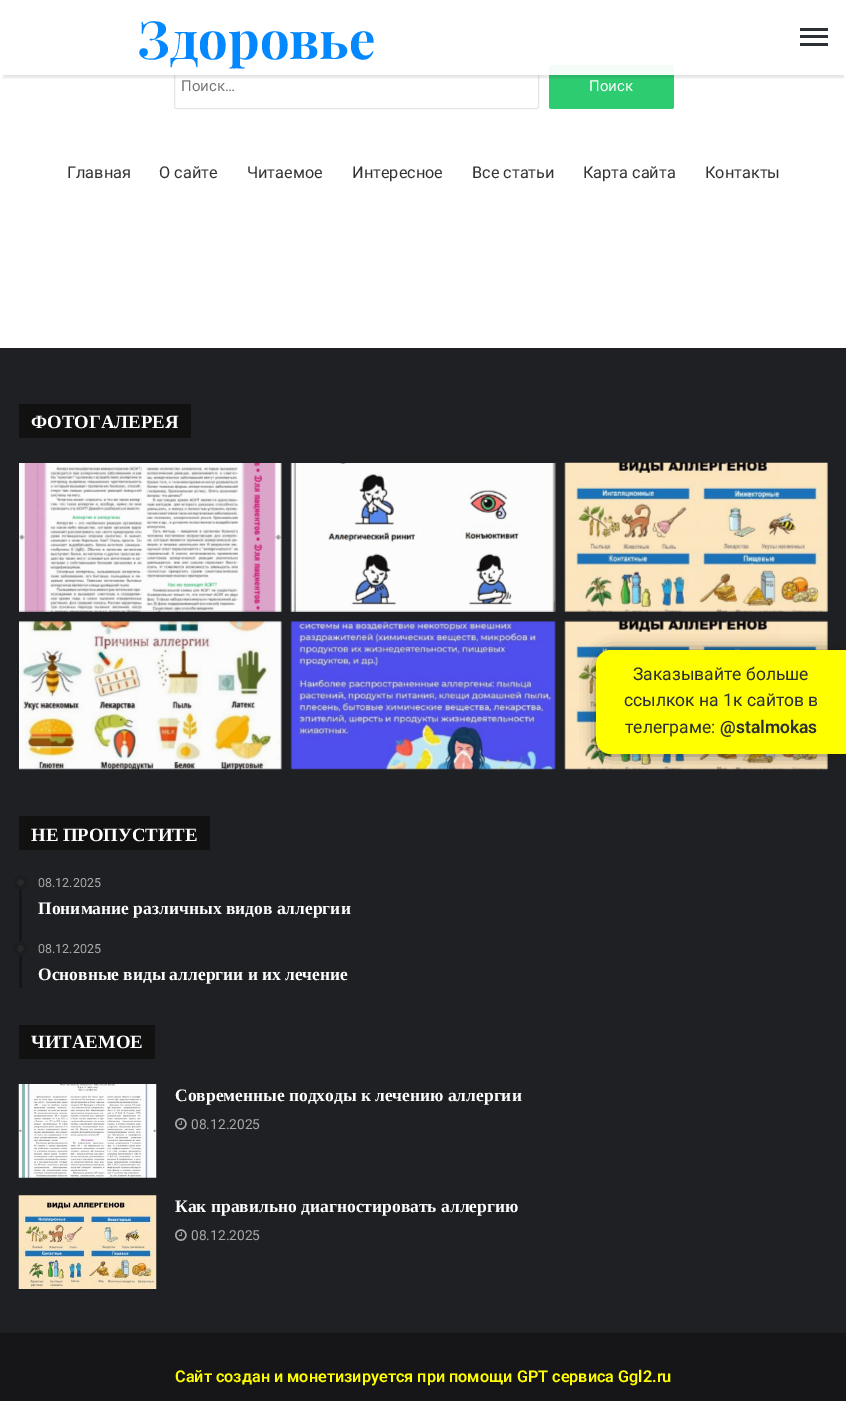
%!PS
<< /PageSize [846 1401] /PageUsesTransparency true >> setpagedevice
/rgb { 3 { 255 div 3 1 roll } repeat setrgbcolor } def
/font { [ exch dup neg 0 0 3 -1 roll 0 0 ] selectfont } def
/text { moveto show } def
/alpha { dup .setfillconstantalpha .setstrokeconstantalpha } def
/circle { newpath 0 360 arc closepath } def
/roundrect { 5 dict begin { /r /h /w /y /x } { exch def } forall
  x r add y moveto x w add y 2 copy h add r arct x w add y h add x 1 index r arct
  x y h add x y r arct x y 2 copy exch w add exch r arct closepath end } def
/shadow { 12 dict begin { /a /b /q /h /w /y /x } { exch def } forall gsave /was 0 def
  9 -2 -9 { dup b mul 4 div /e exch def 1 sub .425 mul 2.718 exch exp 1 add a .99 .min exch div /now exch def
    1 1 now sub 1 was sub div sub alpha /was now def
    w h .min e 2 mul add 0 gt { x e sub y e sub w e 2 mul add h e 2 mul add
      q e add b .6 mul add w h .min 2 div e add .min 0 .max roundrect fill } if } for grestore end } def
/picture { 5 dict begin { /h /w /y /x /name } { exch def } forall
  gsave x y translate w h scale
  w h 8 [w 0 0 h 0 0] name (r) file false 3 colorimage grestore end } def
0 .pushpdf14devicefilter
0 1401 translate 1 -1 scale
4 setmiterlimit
255 255 255 rgb
0 0 846 1401 rectfill
230 230 230 rgb
174.5 65.5 364 43 2 roundrect stroke
46 204 113 rgb
549 65 125 44 2.5 roundrect fill
gsave
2 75 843 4 rectclip
0 0 0 rgb
3 8 841 70 0 1 0.1 shadow
grestore
0.95 alpha
255 255 255 rgb
174 65 500 10 rectfill
1 alpha
44 47 52 rgb
800 35 28 3 rectfill
800 28 28 3 rectfill
800 43 28 3 rectfill
31 32 36 rgb
0 348 846 985 rectfill
17 17 17 rgb
19 404 172 34 rectfill
(img_01.rgb) 19 463 263 149 picture
(img_02.rgb) 290 463 266 149 picture
(img_03.rgb) 564 462 264 150 picture
(img_04.rgb) 19 621 263 149 picture
(img_05.rgb) 290 621 266 149 picture
(img_06.rgb) 564 620 264 150 picture
19 816 191 34 rectfill
22 22 25 rgb
19 875 3 113 rectfill
39 41 45 rgb
20.5 882.5 7.5 circle fill
0.3 alpha
0 0 0 rgb
4 setlinewidth
20.5 882.5 5.5 circle stroke
1 alpha
39 41 45 rgb
20.5 948.5 7.5 circle fill
0.3 alpha
0 0 0 rgb
20.5 948.5 5.5 circle stroke
1 alpha
17 17 17 rgb
19 1025 136 34 rectfill
(img_07.rgb) 18 1084 139 94 picture
(img_08.rgb) 175 1118 12 12 picture
(img_09.rgb) 18 1195 139 94 picture
(img_10.rgb) 175 1229 12 12 picture
22 22 25 rgb
0 1333 846 68 rectfill
20 20 10 rgb
596 651 250 104 15 7.5 0.56 shadow
255 255 0 rgb
611 650 moveto 235 0 rlineto 0 104 rlineto -235 0 rlineto -8.5 0 -15 -6.5 -15 -15 rcurveto 0 -74 rlineto 0 -8.5 6.5 -15 15 -15 rcurveto closepath fill
/PlayfairDisplay-Bold 52.5 font
4 136 255 rgb
(Здоровье) 138 59 text
/Roboto-Regular 15 font
117 117 117 rgb
(Поиск…) 181 91 text
255 255 255 rgb
(Поиск) 589 91 text
/Roboto-Regular 16.25 font
51 51 51 rgb
(Главная) 67 178 text
(О сайте) 159 178 text
(Читаемое) 247 178 text
(Интересное) 352 178 text
(Все статьи) 472 178 text
(Карта сайта) 583 178 text
(Контакты) 705 178 text
/LiberationSerif-Bold 18.75 font
255 255 255 rgb
(ФОТОГАЛЕРЕЯ) 31 428 text
(НЕ ПРОПУСТИТЕ) 31 841 text
/Roboto-Regular 12.5 font
169 169 169 rgb
(08.12.2025) 38 887 text
/LiberationSerif-Bold 17.5 font
255 255 255 rgb
(Понимание различных видов аллергии) 38 914 text
/Roboto-Regular 12.5 font
169 169 169 rgb
(08.12.2025) 38 953 text
/LiberationSerif-Bold 17.5 font
255 255 255 rgb
38 980 moveto -0.25 0 32 (Основные виды аллергии и их лечение) widthshow
/LiberationSerif-Bold 18.75 font
(ЧИТАЕМОЕ) 31 1048 text
/LiberationSerif-Bold 17.5 font
175 1101 moveto -0.25 0 32 (Современные подходы к лечению аллергии) widthshow
/Roboto-Regular 13.75 font
169 169 169 rgb
(08.12.2025) 191 1129 text
/LiberationSerif-Bold 17.5 font
255 255 255 rgb
(Как правильно диагностировать аллергию) 175 1212 text
/Roboto-Regular 13.75 font
169 169 169 rgb
(08.12.2025) 191 1240 text
/Roboto-SemiBold 16.25 font
255 255 0 rgb
(Сайт создан и монетизируется при помощи GPT сервиса Ggl2.ru) 175 1382 text
/Roboto-Regular 17.5 font
44 47 52 rgb
(Заказывайте больше) 633 680 text
(ссылкок на 1к сайтов в) 624 706 text
(телеграме:) 625 733 text
/Roboto-SemiBold 17.5 font
(@stalmokas) 720 733 text
.poppdf14devicefilter showpage
